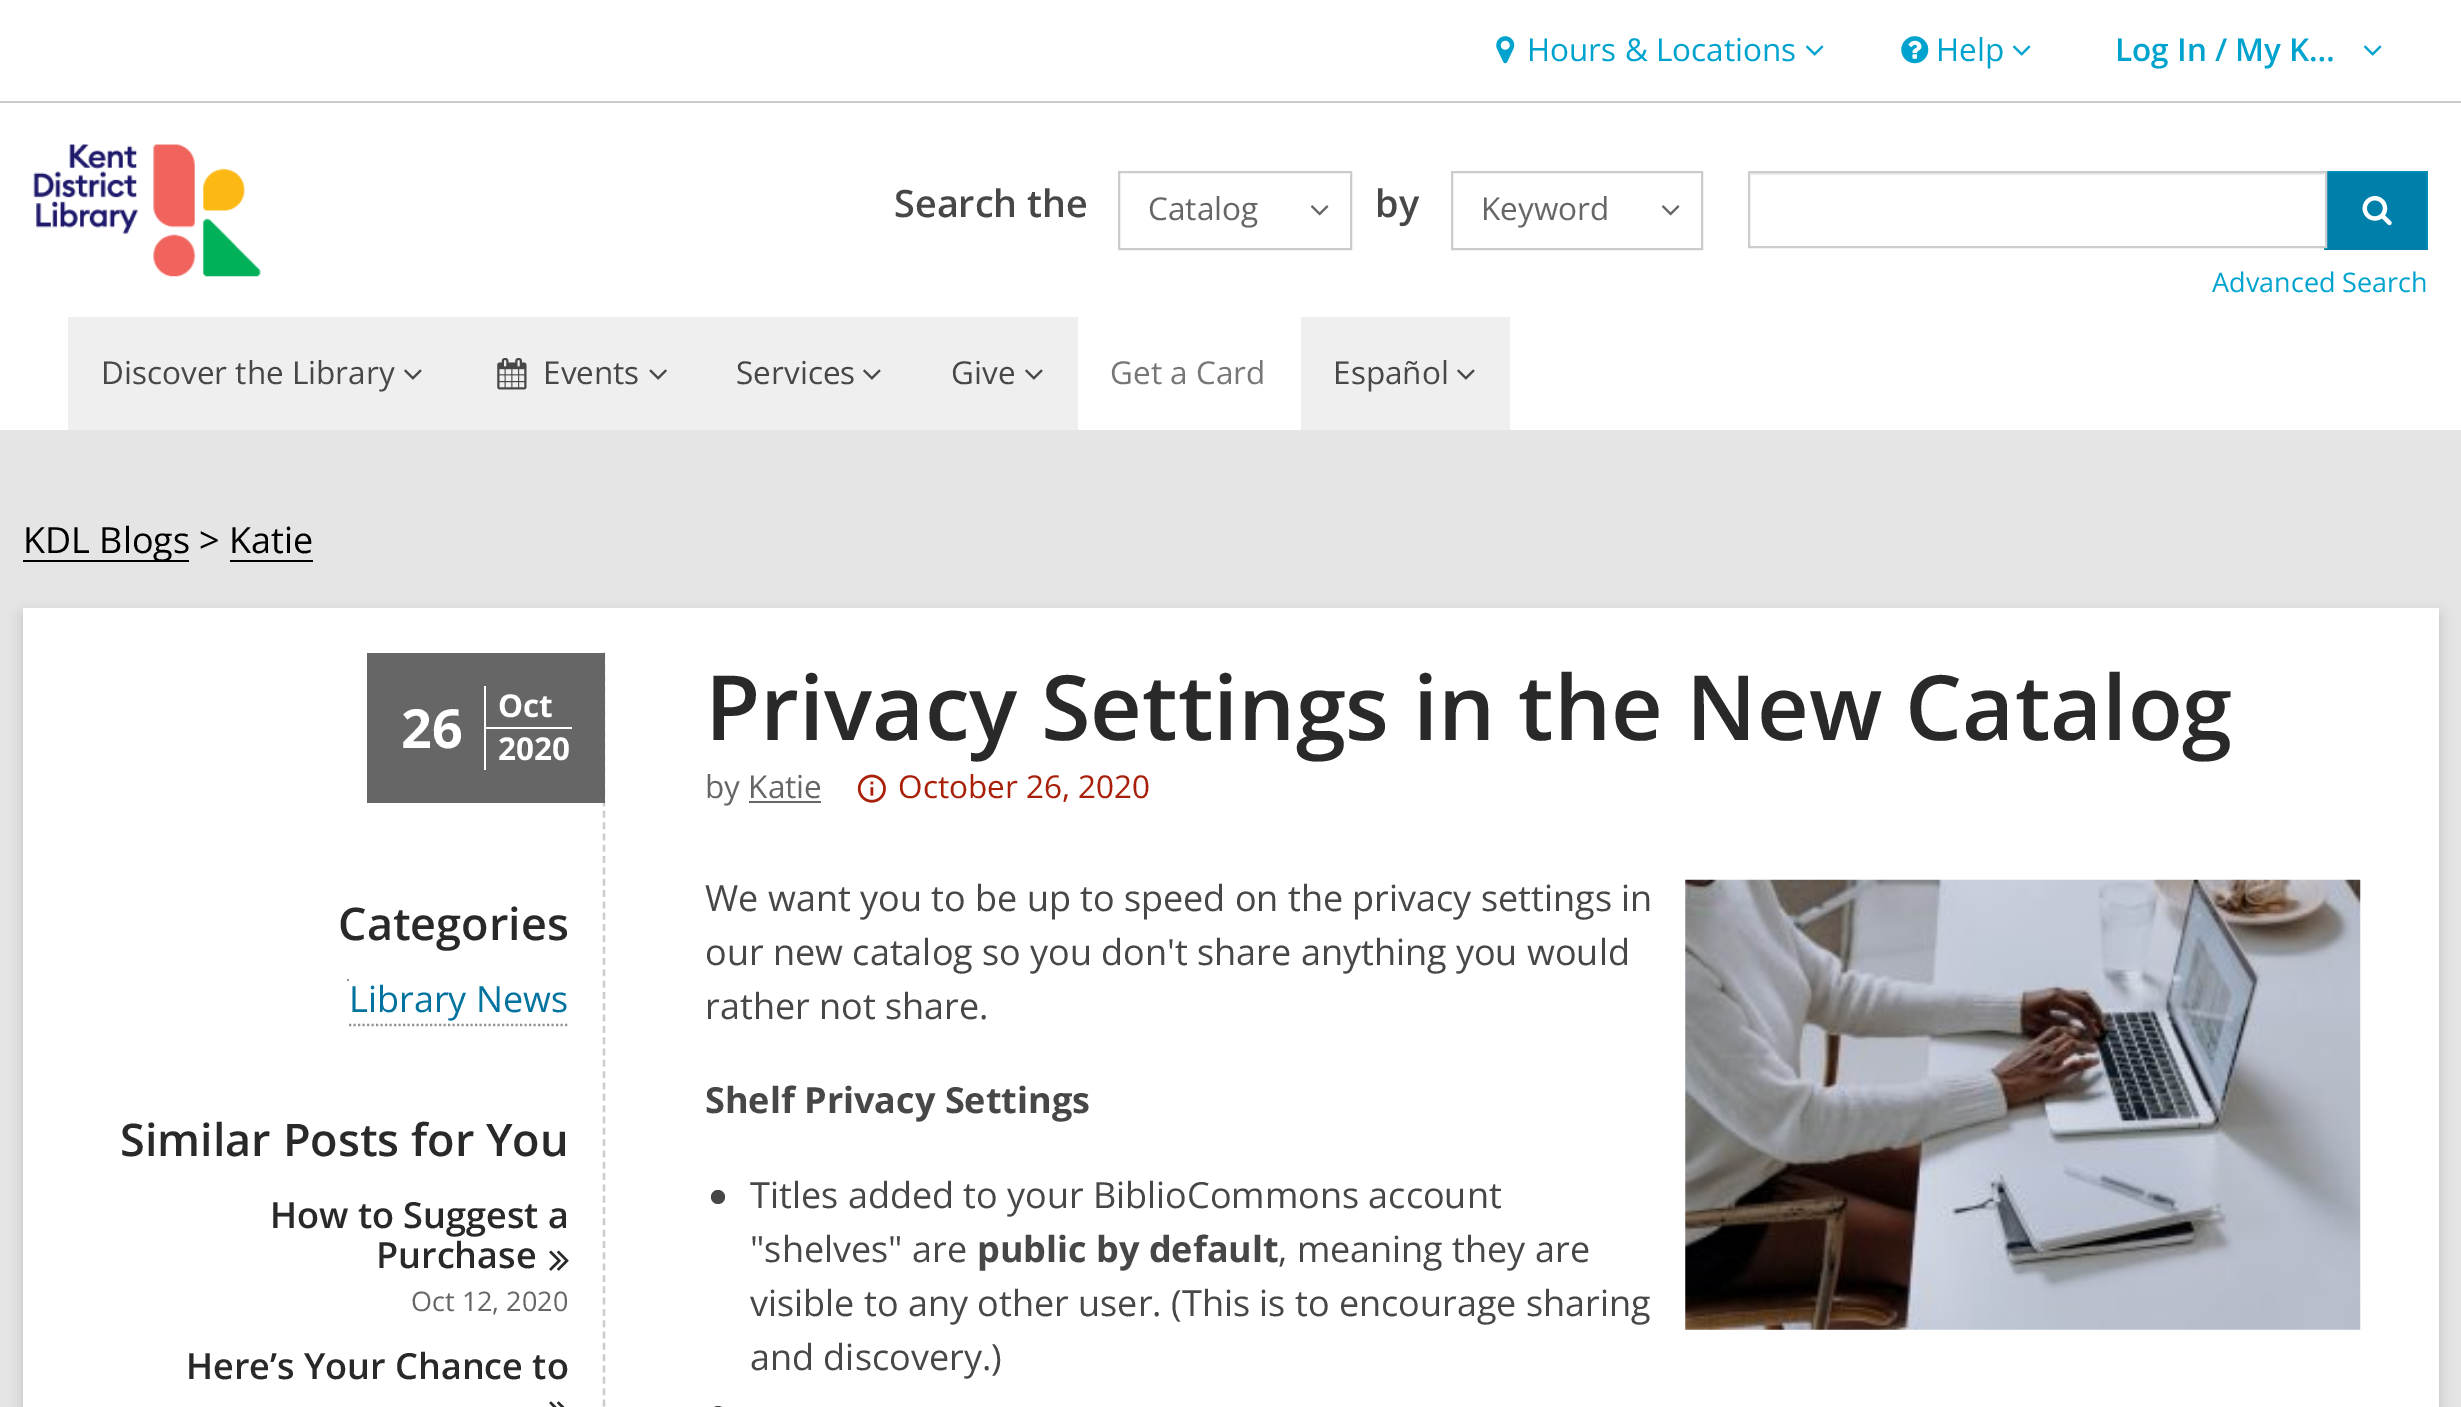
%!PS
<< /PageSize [2461 1407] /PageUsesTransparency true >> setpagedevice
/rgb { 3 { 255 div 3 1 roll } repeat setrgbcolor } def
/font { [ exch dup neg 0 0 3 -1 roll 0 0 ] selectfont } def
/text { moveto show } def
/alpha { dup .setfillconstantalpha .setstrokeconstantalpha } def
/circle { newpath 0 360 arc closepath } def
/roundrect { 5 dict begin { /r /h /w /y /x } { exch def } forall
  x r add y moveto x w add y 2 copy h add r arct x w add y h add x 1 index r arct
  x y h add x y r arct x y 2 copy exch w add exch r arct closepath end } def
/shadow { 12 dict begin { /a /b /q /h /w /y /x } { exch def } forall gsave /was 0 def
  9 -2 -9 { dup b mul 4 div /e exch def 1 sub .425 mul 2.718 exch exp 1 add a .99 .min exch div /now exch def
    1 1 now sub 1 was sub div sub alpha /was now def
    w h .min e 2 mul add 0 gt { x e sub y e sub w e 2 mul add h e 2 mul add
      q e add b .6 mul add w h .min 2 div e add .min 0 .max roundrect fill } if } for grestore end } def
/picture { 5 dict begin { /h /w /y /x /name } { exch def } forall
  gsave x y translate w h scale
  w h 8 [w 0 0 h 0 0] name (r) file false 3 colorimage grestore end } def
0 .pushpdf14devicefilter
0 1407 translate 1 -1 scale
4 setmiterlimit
229 229 229 rgb
0 0 2461 1407 rectfill
255 255 255 rgb
0 0 2461 430 rectfill
204 204 204 rgb
0 101 2461 2 rectfill
(img_01.rgb) 1496 36 19 28 picture
(img_02.rgb) 1805 45 19 11 picture
(img_03.rgb) 1901 36 28 28 picture
(img_02.rgb) 2012 45 19 11 picture
(img_02.rgb) 2363 45 19 11 picture
(img_04.rgb) 33 144 228 133 picture
2 setlinewidth
1119 172 232 77 rectstroke
(img_05.rgb) 1310 205 19 11 picture
1452 172 250 77 rectstroke
(img_05.rgb) 1661 205 19 11 picture
0 127 170 rgb
2324 173 104 77 rectfill
0 142 180 rgb
2324 171 104 2 rectfill
2324 250 moveto 0 -79 rlineto 2 2 rlineto 0 75 rlineto closepath fill
255 255 255 rgb
2324 173 1 73 rectfill
236 236 236 rgb
1751 173 573 2 rectfill
204 204 204 rgb
1749 172 577 75 rectstroke
0 142 180 rgb
2428 171 moveto 0 79 rlineto -2 -2 rlineto 0 -75 rlineto closepath fill
(img_06.rgb) 2362 196 30 30 picture
239 239 239 rgb
68 317 1010 113 rectfill
(img_07.rgb) 404 369 18 11 picture
(img_08.rgb) 497 358 30 32 picture
(img_09.rgb) 649 369 18 11 picture
(img_07.rgb) 863 369 18 11 picture
(img_07.rgb) 1025 369 18 11 picture
1301 317 209 113 rectfill
(img_07.rgb) 1457 369 18 11 picture
0 0 0 rgb
23 560 166 2 rectfill
230 560 83 2 rectfill
23 614 2416 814 0 7 0.16 shadow
255 255 255 rgb
23 608 2416 799 rectfill
204 204 204 rgb
2.2 setlinewidth
[6.75 4.57] 0 setdash
604 652.5 moveto 0 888.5 rlineto stroke
102 102 102 rgb
367 653 238 150 rectfill
255 255 255 rgb
484 686 2 84 rectfill
486 727 86 2 rectfill
148 148 148 rgb
347 979 2 2 rectfill
[2.25 2.25] 0 setdash
349 1025 moveto 220 0 rlineto stroke
(img_10.rgb) 549 1250 20 21 picture
(img_11.rgb) 549 1401 16 6 picture
(img_12.rgb) 857 774 29 29 picture
102 102 102 rgb
749 801 72 2 rectfill
(img_13.rgb) 1685 879 676 451 picture
71 71 71 rgb
718 1197 7 circle fill
711 1406 14 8 7 roundrect fill
/OpenSans-Regular 31.5 font
0 162 206 rgb
(Hours & Locations) 1527 61 text
(Help) 1936 61 text
/OpenSans-SemiBold 31.5 font
(Log In / My K…) 2115 61 text
/OpenSans-SemiBold 37.75 font
71 71 71 rgb
(Search the) 894 217 text
/OpenSans-Regular 31.5 font
102 102 102 rgb
(Catalog) 1148 220 text
/OpenSans-SemiBold 37.75 font
71 71 71 rgb
(by) 1375 217 text
/OpenSans-Regular 31.5 font
102 102 102 rgb
(Keyword) 1481 220 text
/OpenSans-Regular 27 font
0 162 206 rgb
(Advanced Search) 2212 292 text
/OpenSans-Regular 31.5 font
71 71 71 rgb
(Discover the Library) 101 384 text
(Events) 543 384 text
(Services) 736 384 text
(Give) 951 384 text
119 119 119 rgb
(Get a Card) 1110 384 text
71 71 71 rgb
(Español) 1333 384 text
/OpenSans-Regular 36 font
0 0 0 rgb
(KDL Blogs > Katie) 23 553 text
/OpenSans-Bold 54 font
255 255 255 rgb
(26) 401 748 text
/OpenSans-Bold 31.5 font
(Oct) 498 717 text
(2020) 498 760 text
/OpenSans-SemiBold 45 font
41 41 41 rgb
(Categories) 338 940 text
/OpenSans-Regular 36 font
2 114 158 rgb
(Library News) 349 1012 text
/OpenSans-SemiBold 45 font
41 41 41 rgb
(Similar Posts for You) 120 1156 text
/OpenSans-SemiBold 36 font
(How to Suggest a) 270 1228 text
(Purchase) 376 1268 text
/OpenSans-Regular 27 font
102 102 102 rgb
(Oct 12, 2020) 411 1311 text
/OpenSans-SemiBold 36 font
41 41 41 rgb
(Here’s Your Chance to) 186 1379 text
/OpenSans-SemiBold 90 font
(Privacy Settings in the New Catalog) 705 740 text
/OpenSans-Regular 31.5 font
102 102 102 rgb
(by Katie) 705 798 text
168 32 9 rgb
(October 26, 2020) 898 798 text
/OpenSans-Regular 36 font
71 71 71 rgb
(We want you to be up to speed on the privacy settings in) 705 911 text
(our new catalog so you don't share anything you would) 705 965 text
(rather not share.) 705 1019 text
/OpenSans-Bold 36 font
(Shelf Privacy Settings) 705 1113 text
/OpenSans-Regular 36 font
(Titles added to your BiblioCommons account) 750 1208 text
("shelves" are) 750 1262 text
/OpenSans-Bold 36 font
(public by default) 977 1262 text
/OpenSans-Regular 36 font
(, meaning they are) 1278 1262 text
(visible to any other user. \(This is to encourage sharing) 750 1316 text
(and discovery.\)) 750 1370 text
.poppdf14devicefilter showpage
